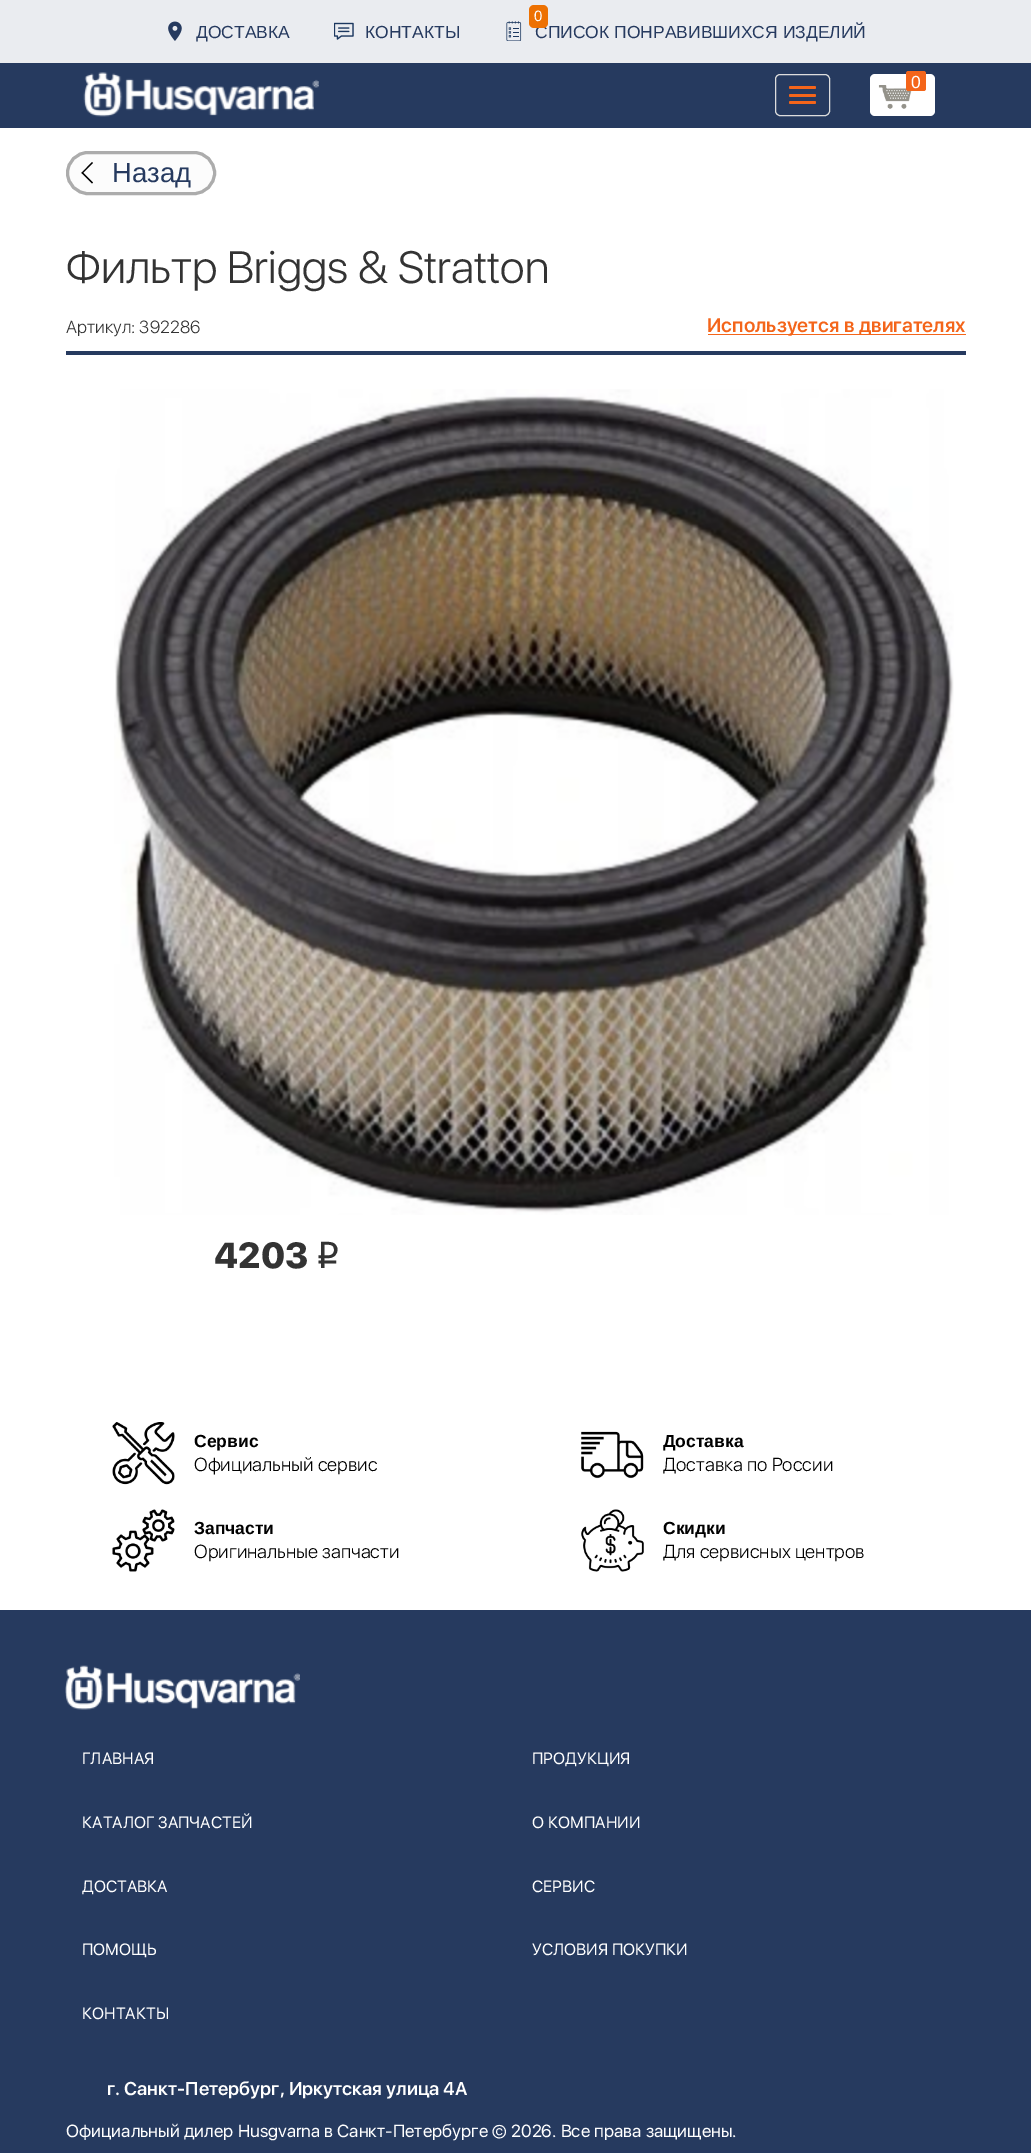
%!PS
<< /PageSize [1031 2153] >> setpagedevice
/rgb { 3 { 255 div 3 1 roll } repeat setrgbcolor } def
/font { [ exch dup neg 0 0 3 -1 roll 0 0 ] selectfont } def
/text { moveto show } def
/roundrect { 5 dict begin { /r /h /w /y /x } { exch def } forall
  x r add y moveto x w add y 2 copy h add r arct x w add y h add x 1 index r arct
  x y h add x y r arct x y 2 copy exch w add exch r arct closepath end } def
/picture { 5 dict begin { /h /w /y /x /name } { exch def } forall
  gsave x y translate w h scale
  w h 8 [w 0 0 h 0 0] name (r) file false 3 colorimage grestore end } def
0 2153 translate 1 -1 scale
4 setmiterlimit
255 255 255 rgb
0 0 1031 2153 rectfill
234 236 240 rgb
0 0 1031 63 rectfill
(img_01.rgb) 168 21 14 20 picture
(img_02.rgb) 334 22 20 18 picture
(img_03.rgb) 506 21 16 20 picture
38 58 95 rgb
0 63 1031 65 rectfill
(img_04.rgb) 83 72 236 45 picture
221 221 221 rgb
775.5 74.5 54 41 4.5 roundrect stroke
244 101 26 rgb
789 86 27 3 1.5 roundrect fill
789 94 27 3 1.5 roundrect fill
789 101 27 3 1.5 roundrect fill
255 255 255 rgb
870 74 65 42 5 roundrect fill
(img_05.rgb) 878 85 34 24 picture
244 101 26 rgb
906 71 20 20 2.5 roundrect fill
252 252 252 rgb
67.5 152.5 147 41 20.5 roundrect gsave fill grestore
172 172 172 rgb
3 setlinewidth
stroke
0 0 0 rgb
81.5 173 moveto 10.5 -11 rlineto 1 1 rlineto -10.5 10.5 rlineto closepath fill
81.5 173 moveto 1 -1 rlineto 10.5 10.5 rlineto -1 1 rlineto closepath fill
244 101 26 rgb
708 334 258 1 rectfill
38 58 95 rgb
66 351 900 4 rectfill
(img_06.rgb) 114 389 840 826 picture
(img_07.rgb) 112 1422 63 63 picture
(img_08.rgb) 581 1431 63 48 picture
(img_09.rgb) 112 1509 63 63 picture
(img_10.rgb) 581 1509 63 63 picture
0 1610 1031 543 rectfill
(img_11.rgb) 65 1665 235 45 picture
/LiberationSans-Regular 17.5 font
(ДОСТАВКА) 196 38 text
(КОНТАКТЫ) 365 38 text
(СПИСОК ПОНРАВИВШИХСЯ ИЗДЕЛИЙ) 535 38 text
237 113 2 rgb
529 5 19 23 5 roundrect fill
/LiberationSans-Regular 15 font
255 255 255 rgb
(0) 534 21 text
/LiberationSans-Regular 17.5 font
(0) 911 88 text
/LiberationSans-Regular 27.5 font
38 58 95 rgb
(Назад) 112 182 text
/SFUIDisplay-Light 45 font
51 51 51 rgb
(Фильтр Briggs & Stratton) 66 283 text
/SFUIDisplay-Light 17.5 font
(Артикул: 392286) 66 333 text
/SFUIDisplay-SemiBold 20 font
244 101 26 rgb
(Используется в двигателях) 707 332 text
/SFUIDisplay-Black 37.5 font
51 51 51 rgb
(4203) 214 1268 text
/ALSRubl-Regular 37.5 font
(i) 315 1268 text
/LiberationSans-Bold 17.5 font
0 0 0 rgb
(Сервис) 194 1447 text
/SFUIDisplay-Light 18.75 font
(Официальный сервис) 194 1471 text
/LiberationSans-Bold 17.5 font
(Доставка) 663 1447 text
/SFUIDisplay-Light 18.75 font
(Доставка по России) 663 1471 text
/LiberationSans-Bold 17.5 font
(Запчасти) 194 1534 text
/SFUIDisplay-Light 18.75 font
(Оригинальные запчасти) 194 1558 text
/LiberationSans-Bold 17.5 font
(Скидки) 663 1534 text
/SFUIDisplay-Light 18.75 font
(Для сервисных центров) 663 1558 text
/SFUIDisplay-Regular 16.25 font
255 255 255 rgb
(ГЛАВНАЯ) 82 1764 text
(ПРОДУКЦИЯ) 532 1764 text
(КАТАЛОГ ЗАПЧАСТЕЙ) 82 1828 text
(О КОМПАНИИ) 532 1828 text
(ДОСТАВКА) 82 1892 text
(СЕРВИС) 532 1892 text
(ПОМОЩЬ) 82 1955 text
(УСЛОВИЯ ПОКУПКИ) 532 1955 text
(КОНТАКТЫ) 82 2019 text
/SFUIDisplay-SemiBold 18.75 font
(г. Санкт-Петербург, Иркутская улица 4А) 107 2095 text
/SFUIDisplay-Regular 17.5 font
(Официальный дилер Husgvarna в Санкт-Петербурге © 2026. Все права защищены.) 66 2137 text
showpage
